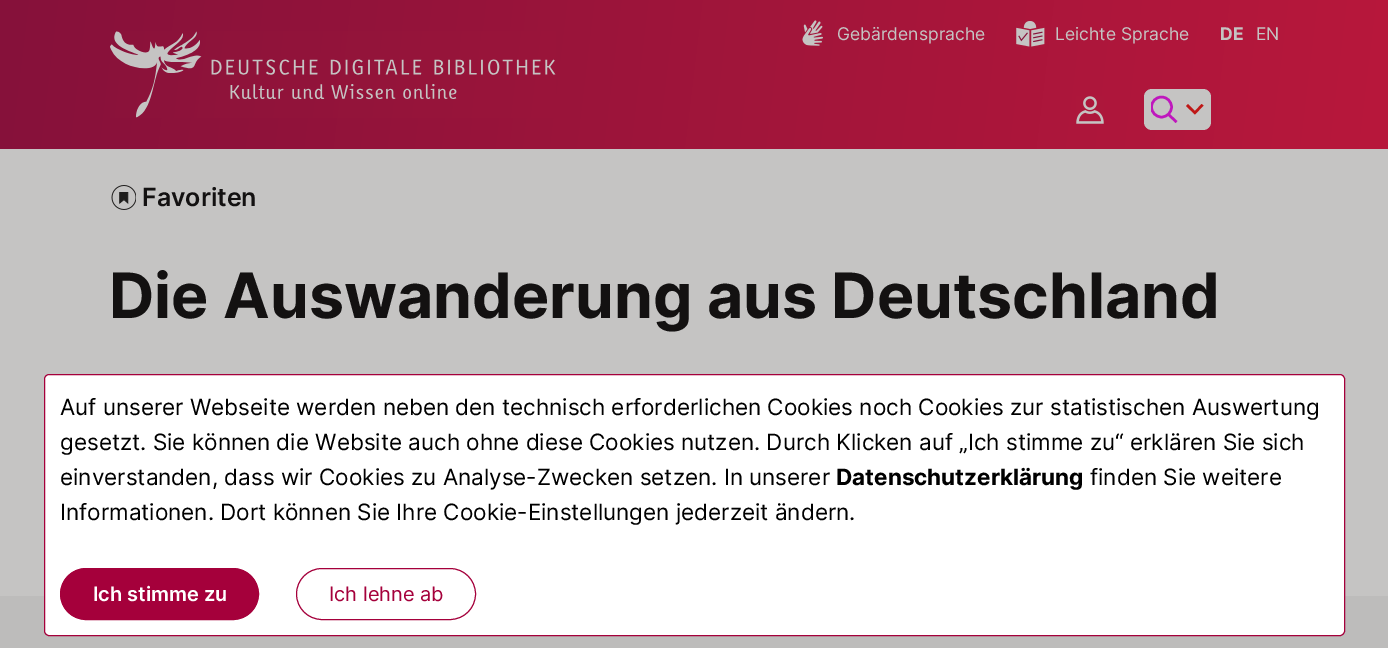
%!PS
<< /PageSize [1388 648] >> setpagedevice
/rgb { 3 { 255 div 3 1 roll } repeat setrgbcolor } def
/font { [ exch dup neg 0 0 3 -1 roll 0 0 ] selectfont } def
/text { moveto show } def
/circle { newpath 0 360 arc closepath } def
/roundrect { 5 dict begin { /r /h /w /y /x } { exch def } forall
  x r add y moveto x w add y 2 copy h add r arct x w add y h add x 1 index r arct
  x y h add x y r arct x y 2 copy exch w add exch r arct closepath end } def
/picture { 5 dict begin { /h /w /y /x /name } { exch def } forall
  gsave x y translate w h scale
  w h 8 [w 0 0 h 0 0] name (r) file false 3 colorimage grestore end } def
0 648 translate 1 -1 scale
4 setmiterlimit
197 196 195 rgb
0 0 1388 648 rectfill
gsave 0 0 moveto 1388 0 rlineto 0 149 rlineto -1388 0 rlineto closepath clip newpath
<< /ShadingType 2 /ColorSpace /DeviceRGB /Coords [1388 157 1 -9] /Extend [true true] /Function << /FunctionType 2 /Domain [0 1] /C0 [0.722 0.094 0.231] /C1 [0.525 0.067 0.227] /N 1 >> >> shfill grestore
(img_01.rgb) 110 31 446 87 picture
(img_02.rgb) 802 20 21 26 picture
(img_03.rgb) 1016 21 29 26 picture
(img_04.rgb) 1076 96 28 28 picture
1144 89 67 41 8 roundrect fill
191 23 189 rgb
2.5 setlinewidth
1168.5 114.5 moveto 8 7.5 rlineto stroke
gsave
1151 89 28 41 rectclip
1161.5 107 10 circle stroke
grestore
191 23 22 rgb
1203.5 105.5 moveto -8.5 9 rlineto -9 -8.5 rlineto 2 -2 rlineto 7 7 rlineto 6.5 -7 rlineto closepath eofill
(img_05.rgb) 111 185 25 25 picture
189 188 187 rgb
0 596 1388 52 rectfill
255 255 255 rgb
44.5 374.5 1300 261 4.5 roundrect gsave fill grestore
165 0 59 rgb
1 setlinewidth
stroke
60.5 568.5 198 51 25.5 roundrect gsave fill grestore
stroke
296.5 568.5 179 51 25.5 roundrect stroke
/Inter-Regular 17.5 font
197 196 195 rgb
(Gebärdensprache) 837 40 text
(Leichte Sprache) 1055 40 text
/Inter-Bold 17.5 font
(DE) 1220 40 text
/Inter-Regular 17.5 font
(EN) 1256 40 text
/Inter-SemiBold 25 font
19 17 17 rgb
(Favoriten) 142 206 text
/Inter-Bold 62.5 font
(Die Auswanderung aus Deutschland) 109 318 text
/Inter-Regular 22.5 font
0 0 0 rgb
(Auf unserer Webseite werden neben den technisch erforderlichen Cookies noch Cookies zur statistischen Auswertung) 60 415 text
(gesetzt. Sie können die Website auch ohne diese Cookies nutzen. Durch Klicken auf „Ich stimme zu“ erklären Sie sich) 60 450 text
(einverstanden, dass wir Cookies zu Analyse-Zwecken setzen. In unserer) 60 485 text
/Inter-Bold 22.5 font
(Datenschutzerklärung) 836 485 text
/Inter-Regular 22.5 font
(finden Sie weitere) 1090 485 text
(Informationen. Dort können Sie Ihre Cookie-Einstellungen jederzeit ändern.) 60 520 text
/Inter-SemiBold 20 font
255 255 255 rgb
(Ich stimme zu) 93 601 text
/Inter-Regular 20 font
165 0 59 rgb
(Ich lehne ab) 329 601 text
showpage
